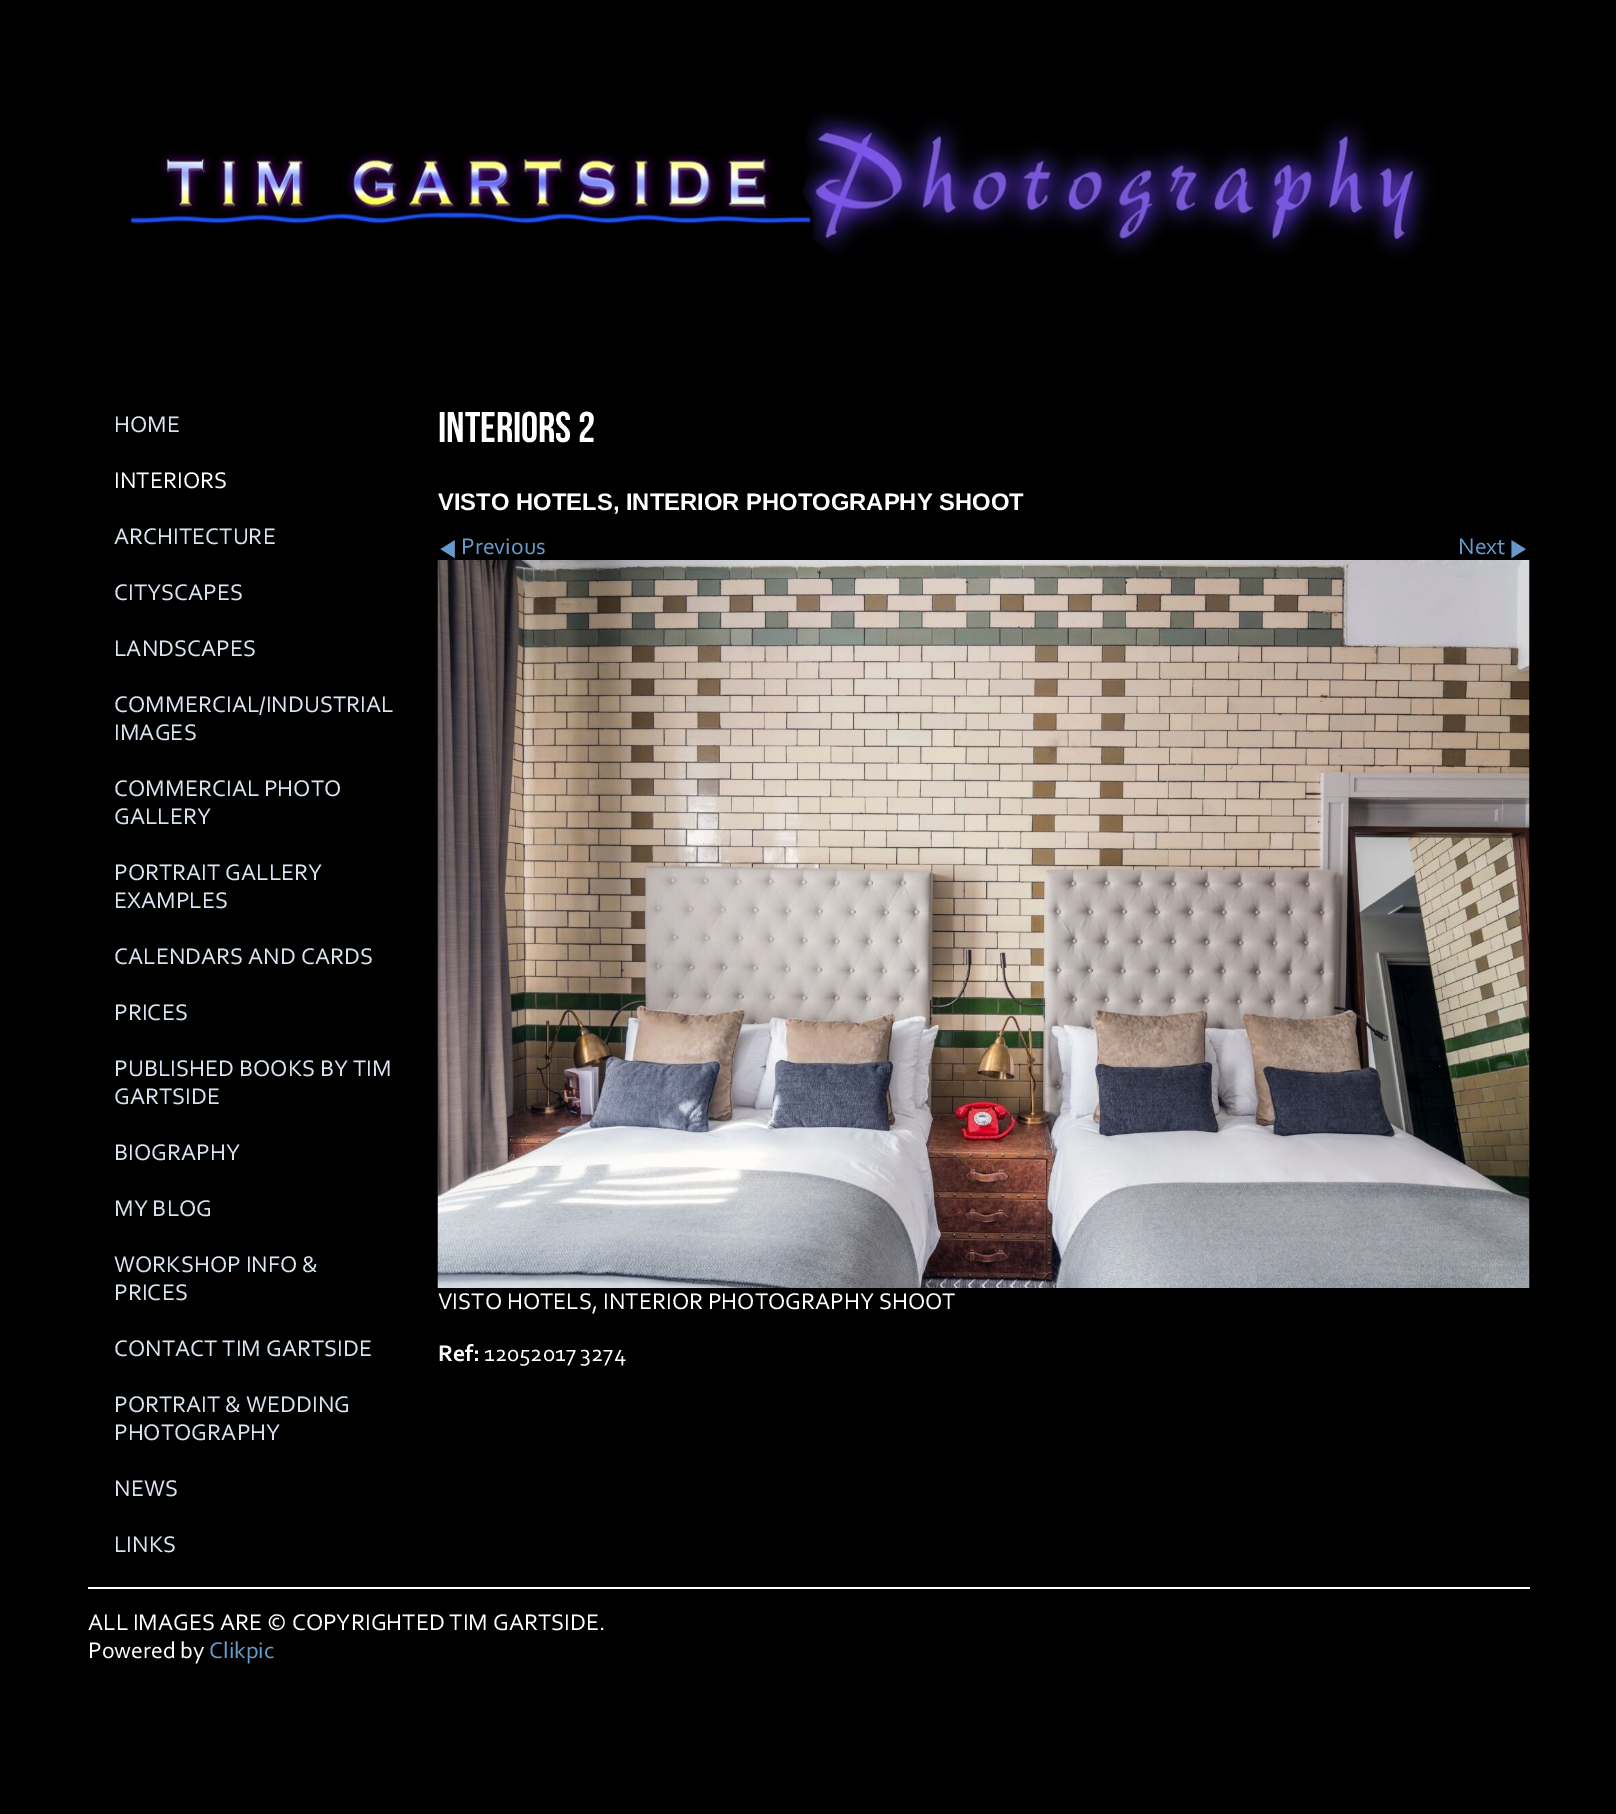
%!PS
<< /PageSize [1616 1814] >> setpagedevice
/rgb { 3 { 255 div 3 1 roll } repeat setrgbcolor } def
/font { [ exch dup neg 0 0 3 -1 roll 0 0 ] selectfont } def
/text { moveto show } def
/picture { 5 dict begin { /h /w /y /x /name } { exch def } forall
  gsave x y translate w h scale
  w h 8 [w 0 0 h 0 0] name (r) file false 3 colorimage grestore end } def
0 1814 translate 1 -1 scale
4 setmiterlimit
0 0 0 rgb
0 0 1616 1814 rectfill
(img_01.rgb) 130 112 1306 146 picture
(img_02.rgb) 440 540 15 19 picture
(img_03.rgb) 1511 540 15 19 picture
(img_04.rgb) 437 560 1093 728 picture
255 255 255 rgb
88 1587 1442 2 rectfill
/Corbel-Regular 23.8 font
219 227 240 rgb
(HOME) 114 432 text
255 255 255 rgb
(INTERIORS) 114 488 text
219 227 240 rgb
(ARCHITECTURE) 114 544 text
(CITYSCAPES) 114 600 text
(LANDSCAPES) 114 656 text
(COMMERCIAL/INDUSTRIAL) 114 712 text
(IMAGES) 114 740 text
(COMMERCIAL PHOTO) 114 796 text
(GALLERY) 114 824 text
(PORTRAIT GALLERY) 114 880 text
(EXAMPLES) 114 908 text
(CALENDARS AND CARDS) 114 964 text
(PRICES) 114 1020 text
(PUBLISHED BOOKS BY TIM) 114 1076 text
(GARTSIDE) 114 1104 text
(BIOGRAPHY) 114 1160 text
(MY BLOG) 114 1216 text
(WORKSHOP INFO &) 114 1272 text
(PRICES) 114 1300 text
(CONTACT TIM GARTSIDE) 114 1356 text
(PORTRAIT & WEDDING) 114 1412 text
(PHOTOGRAPHY) 114 1440 text
(NEWS) 114 1496 text
(LINKS) 114 1552 text
/BebasNeue-Regular 43 font
255 255 255 rgb
(INTERIORS 2) 438 442 text
/LiberationSans-Bold 23.8 font
(VISTO HOTELS, INTERIOR PHOTOGRAPHY SHOOT) 438 510 text
/Corbel-Regular 23.8 font
102 153 204 rgb
(Previous) 461 554 text
(Next) 1458 554 text
255 255 255 rgb
(VISTO HOTELS, INTERIOR PHOTOGRAPHY SHOOT) 438 1309 text
/Corbel-Bold 23.8 font
(Ref:) 438 1361 text
/Corbel-Regular 23.8 font
(12052017 3274) 484 1361 text
(ALL IMAGES ARE © COPYRIGHTED TIM GARTSIDE.) 88 1630 text
(Powered by) 88 1658 text
102 153 204 rgb
(Clikpic) 209 1658 text
showpage
